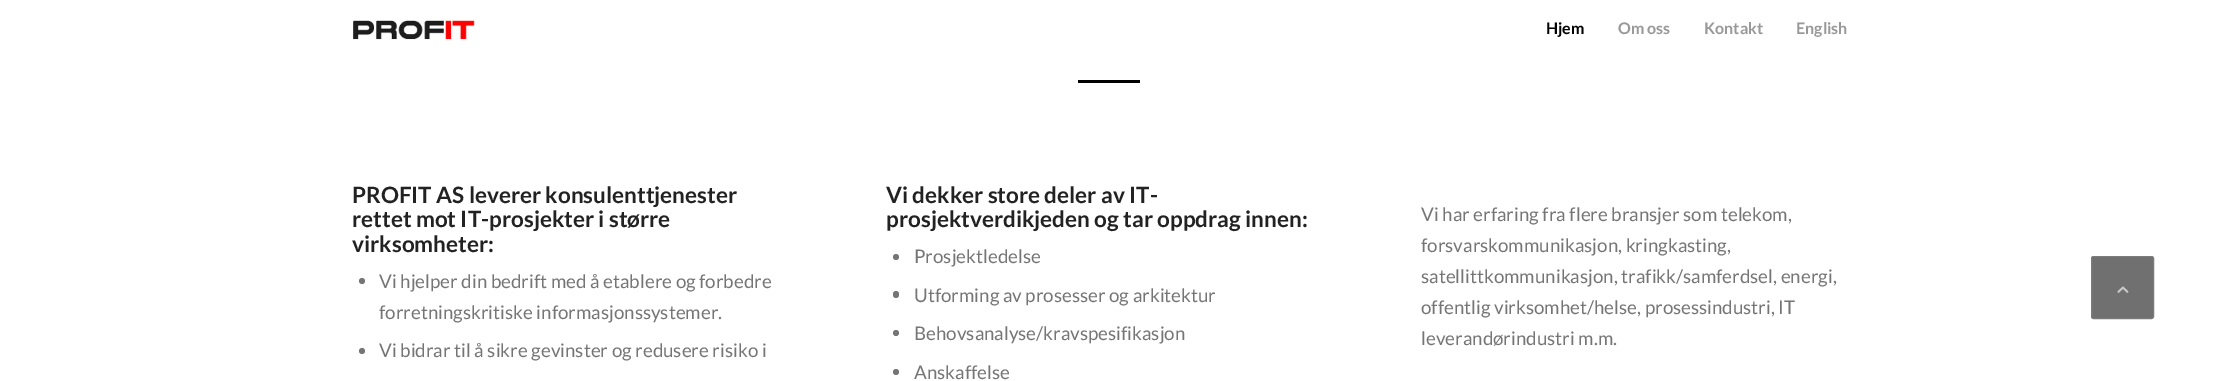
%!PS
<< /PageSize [2216 381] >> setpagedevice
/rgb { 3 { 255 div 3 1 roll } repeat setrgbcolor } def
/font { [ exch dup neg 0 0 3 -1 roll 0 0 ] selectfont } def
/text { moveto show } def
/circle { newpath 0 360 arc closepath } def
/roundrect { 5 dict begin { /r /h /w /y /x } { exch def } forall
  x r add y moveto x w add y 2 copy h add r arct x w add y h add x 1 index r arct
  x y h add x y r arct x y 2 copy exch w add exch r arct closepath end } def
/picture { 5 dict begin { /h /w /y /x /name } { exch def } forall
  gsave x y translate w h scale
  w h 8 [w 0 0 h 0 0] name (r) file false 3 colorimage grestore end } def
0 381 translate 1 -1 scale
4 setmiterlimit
255 255 255 rgb
0 0 2216 381 rectfill
(img_01.rgb) 353 20 122 20 picture
0 0 0 rgb
1078 80 62 3 rectfill
117 117 117 rgb
362 281 3 circle fill
362 351 3 circle fill
896 257 3 circle fill
893 291 6 7 3 roundrect fill
896 333 3 circle fill
896 372 3 circle fill
112 112 112 rgb
2091.5 256.5 62 62 2 roundrect gsave fill grestore
124 124 124 rgb
stroke
(img_02.rgb) 2117 286 12 7 picture
/Lato-Bold 16 font
0 0 0 rgb
(Hjem) 1546 34 text
153 153 153 rgb
(Om oss) 1618 34 text
(Kontakt) 1704 34 text
(English) 1796 34 text
/Lato-Bold 22.5 font
34 34 34 rgb
(PROFIT AS leverer konsulenttjenester) 352 203 text
(rettet mot IT-prosjekter i større) 352 227 text
(virksomheter:) 352 252 text
/Lato-Regular 18.75 font
117 117 117 rgb
(Vi hjelper din bedrift med å etablere og forbedre) 379 288 text
(forretningskritiske informasjonssystemer.) 379 319 text
(Vi bidrar til å sikre gevinster og redusere risiko i) 379 357 text
/Lato-Bold 22.5 font
34 34 34 rgb
(Vi dekker store deler av IT-) 886 203 text
(prosjektverdikjeden og tar oppdrag innen:) 886 227 text
/Lato-Regular 18.75 font
117 117 117 rgb
(Prosjektledelse) 914 263 text
(Utforming av prosesser og arkitektur) 914 302 text
(Behovsanalyse/kravspesifikasjon) 914 340 text
(Anskaffelse) 914 379 text
(Vi har erfaring fra flere bransjer som telekom,) 1421 221 text
(forsvarskommunikasjon, kringkasting,) 1421 252 text
(satellittkommunikasjon, trafikk/samferdsel, energi,) 1421 283 text
(offentlig virksomhet/helse, prosessindustri, IT) 1421 314 text
(leverandørindustri m.m.) 1421 345 text
showpage
